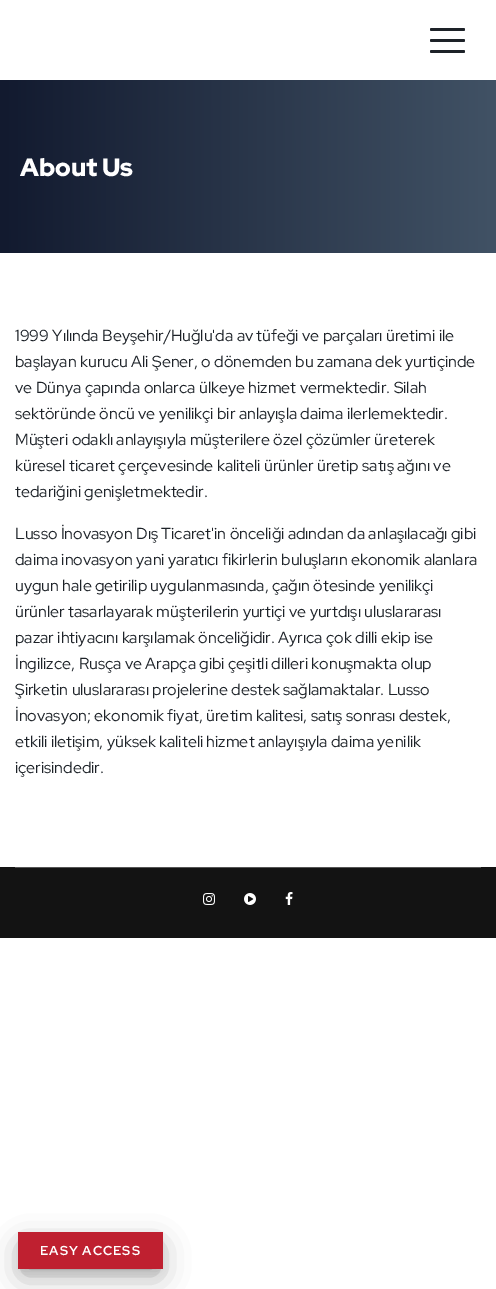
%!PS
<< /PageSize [496 1289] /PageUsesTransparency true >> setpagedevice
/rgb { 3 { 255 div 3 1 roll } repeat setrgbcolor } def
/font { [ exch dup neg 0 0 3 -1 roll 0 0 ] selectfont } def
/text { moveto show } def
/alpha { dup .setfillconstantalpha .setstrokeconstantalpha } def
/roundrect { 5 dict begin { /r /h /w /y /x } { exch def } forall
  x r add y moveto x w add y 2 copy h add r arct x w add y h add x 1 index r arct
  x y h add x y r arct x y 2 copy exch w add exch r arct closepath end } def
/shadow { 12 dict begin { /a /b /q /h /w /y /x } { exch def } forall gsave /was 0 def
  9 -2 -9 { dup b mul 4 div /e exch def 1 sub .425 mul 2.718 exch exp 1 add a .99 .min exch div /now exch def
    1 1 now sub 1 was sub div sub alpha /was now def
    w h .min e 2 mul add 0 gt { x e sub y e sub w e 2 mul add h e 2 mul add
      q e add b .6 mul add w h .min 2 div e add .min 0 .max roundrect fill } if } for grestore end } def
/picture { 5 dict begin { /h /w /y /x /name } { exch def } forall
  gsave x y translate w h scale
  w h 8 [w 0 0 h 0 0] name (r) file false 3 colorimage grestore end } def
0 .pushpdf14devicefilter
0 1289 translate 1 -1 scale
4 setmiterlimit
255 255 255 rgb
0 0 496 1289 rectfill
29 34 40 rgb
430 28 35 3 1.5 roundrect fill
430 39 35 3 1.5 roundrect fill
430 50 35 3 1.5 roundrect fill
gsave 0 80 moveto 496 0 rlineto 0 173 rlineto -496 0 rlineto closepath clip newpath
<< /ShadingType 2 /ColorSpace /DeviceRGB /Coords [0 127 496 126] /Extend [true true] /Function << /FunctionType 2 /Domain [0 1] /C0 [0.071 0.102 0.184] /C1 [0.255 0.322 0.396] /N 1 >> >> shfill grestore
19 19 19 rgb
0 867 496 71 rectfill
85 85 85 rgb
15 867 466 1 rectfill
(img_01.rgb) 203 893 12 12 picture
(img_02.rgb) 244 893 12 12 picture
(img_03.rgb) 285 892 8 13 picture
0 0 0 rgb
23 1247 135 27 0 15 0.35 shadow
23 1241 135 27 0 5.5 0.24 shadow
191 32 48 rgb
18 1232 145 37 rectfill
/RedHatDisplay-Black 25 font
255 255 255 rgb
(About Us) 20 176 text
/RedHatDisplay-Regular 16 font
29 34 40 rgb
(1999 Yılında Beyşehir/Huğlu'da av tüfeği ve parçaları üretimi ile) 15 341 text
(başlayan kurucu Ali Şener, o dönemden bu zamana dek yurtiçinde) 15 367 text
(ve Dünya çapında onlarca ülkeye hizmet vermektedir. Silah) 15 393 text
(sektöründe öncü ve yenilikçi bir anlayışla daima ilerlemektedir.) 15 419 text
(Müşteri odaklı anlayışıyla müşterilere özel çözümler üreterek) 15 445 text
(küresel ticaret çerçevesinde kaliteli ürünler üretip satış ağını ve) 15 471 text
(tedariğini genişletmektedir.) 15 497 text
(Lusso İnovasyon Dış Ticaret'in önceliği adından da anlaşılacağı gibi) 15 539 text
(daima inovasyon yani yaratıcı fikirlerin buluşların ekonomik alanlara) 15 565 text
(uygun hale getirilip uygulanmasında, çağın ötesinde yenilikçi) 15 591 text
(ürünler tasarlayarak müşterilerin yurtiçi ve yurtdışı uluslararası) 15 617 text
(pazar ihtiyacını karşılamak önceliğidir. Ayrıca çok dilli ekip ise) 15 643 text
(İngilizce, Rusça ve Arapça gibi çeşitli dilleri konuşmakta olup) 15 669 text
(Şirketin uluslararası projelerine destek sağlamaktalar. Lusso) 15 695 text
(İnovasyon; ekonomik fiyat, üretim kalitesi, satış sonrası destek,) 15 721 text
(etkili iletişim, yüksek kaliteli hizmet anlayışıyla daima yenilik) 15 747 text
(içerisindedir.) 15 773 text
/RedHatDisplay-Bold 13 font
255 255 255 rgb
40 1255 moveto 1 0 (EASY ACCESS) ashow
.poppdf14devicefilter showpage
